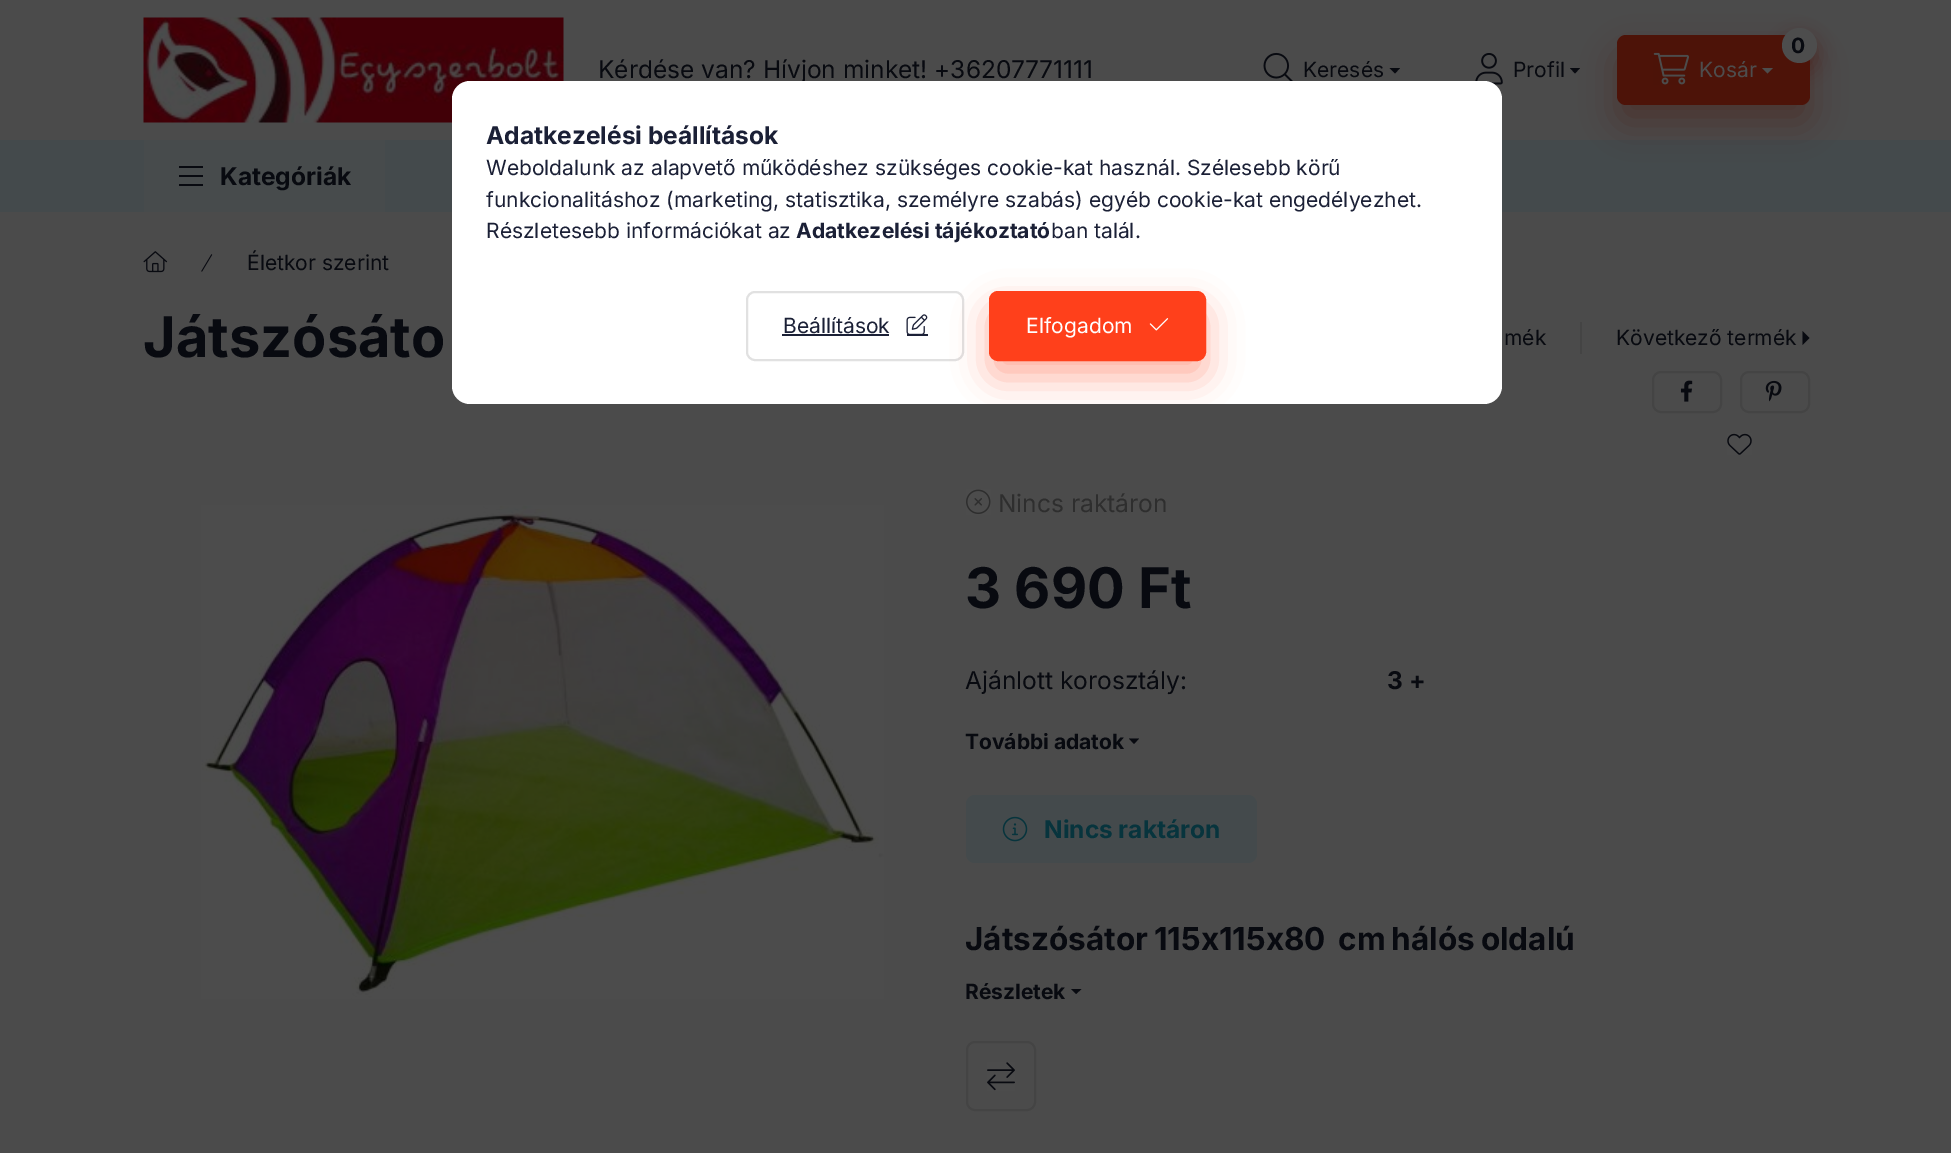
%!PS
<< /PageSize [1951 1153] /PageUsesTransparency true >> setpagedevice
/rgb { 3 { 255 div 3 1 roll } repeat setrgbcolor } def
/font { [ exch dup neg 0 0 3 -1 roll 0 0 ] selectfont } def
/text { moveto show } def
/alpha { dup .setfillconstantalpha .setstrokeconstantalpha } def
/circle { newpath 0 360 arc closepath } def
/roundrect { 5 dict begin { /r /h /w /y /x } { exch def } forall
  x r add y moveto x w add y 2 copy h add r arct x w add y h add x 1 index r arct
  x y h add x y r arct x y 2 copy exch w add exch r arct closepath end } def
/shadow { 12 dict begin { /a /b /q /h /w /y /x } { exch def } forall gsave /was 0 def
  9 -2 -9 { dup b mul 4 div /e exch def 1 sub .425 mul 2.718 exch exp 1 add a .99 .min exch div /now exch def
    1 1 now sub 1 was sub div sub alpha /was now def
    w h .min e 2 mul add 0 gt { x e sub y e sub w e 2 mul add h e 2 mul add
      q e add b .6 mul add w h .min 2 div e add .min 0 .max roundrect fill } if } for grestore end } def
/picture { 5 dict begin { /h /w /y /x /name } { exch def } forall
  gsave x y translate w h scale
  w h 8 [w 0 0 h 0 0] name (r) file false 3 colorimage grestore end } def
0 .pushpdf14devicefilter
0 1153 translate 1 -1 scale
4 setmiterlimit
75 75 75 rgb
0 0 1951 1153 rectfill
(img_01.rgb) 143 17 421 106 picture
(img_02.rgb) 1263 52 30 29 picture
8 10 16 rgb
1389.5 68 moveto 10.5 0 rlineto -5 5.5 rlineto closepath fill
(img_03.rgb) 1475 53 28 32 picture
68 74 76 rgb
0 140 1951 72 rectfill
77 19 8 rgb
1617 53 193 70 9 17.5 0.4 shadow
8 10 16 rgb
1570 68 moveto 10 0 rlineto -5 5.5 rlineto closepath fill
77 19 8 rgb
1617 35 193 70 9 roundrect fill
1782 37 35 35 17.5 9 0.4 shadow
77 77 77 rgb
1799.5 45.5 17.5 circle fill
(img_04.rgb) 1653 52 36 33 picture
1762 68 moveto 11 0 rlineto -5.5 5.5 rlineto closepath fill
71 75 76 rgb
144 140 241 72 rectfill
8 10 16 rgb
179 166 24 2 rectfill
179 175 24 2 rectfill
179 184 24 2 rectfill
(img_05.rgb) 143 251 25 22 picture
(img_06.rgb) 201 254 12 18 picture
68 68 68 rgb
1580 322 2 32 rectfill
8 10 16 rgb
1802.5 345 moveto 0 -14 rlineto 7 7 rlineto closepath fill
68 68 68 rgb
2 setlinewidth
1653 372 68 40 8 roundrect stroke
(img_07.rgb) 1680 380 13 22 picture
1741 372 68 40 8 roundrect stroke
(img_08.rgb) 1765 380 17 22 picture
(img_09.rgb) 1727 433 25 22 picture
(img_10.rgb) 201 505 683 494 picture
(img_11.rgb) 966 489 25 26 picture
8 10 16 rgb
1129 738.5 moveto 10 0 rlineto -5 5.5 rlineto closepath fill
68 74 76 rgb
966 795 291 68 9 roundrect fill
(img_12.rgb) 1002 816 26 26 picture
8 10 16 rgb
1071 989 moveto 10.5 0 rlineto -5.5 5 rlineto closepath fill
68 68 68 rgb
967 1042 68 68 8 roundrect stroke
(img_13.rgb) 987 1062 28 29 picture
/Inter-Regular 24.5 font
8 10 16 rgb
(Kérdése van? Hívjon minket! +36207771111) 598 78 text
/Inter-Regular 21 font
(Keresés) 1303 77 text
(Profil) 1513 77 text
/Inter-Bold 21 font
(0) 1791 53 text
/Inter-Regular 21 font
77 77 77 rgb
(Kosár) 1699 77 text
/Inter-Bold 24.5 font
8 10 16 rgb
(Kategóriák) 220 185 text
/Inter-Regular 21 font
(Életkor szerint) 247 270 text
/Inter-Bold 56 font
143 357 moveto -3 0 32 (Játszósáto) widthshow
/Inter-Regular 21 font
(mék) 1504 345 text
(Következő termék) 1616 345 text
/Inter-Regular 24.5 font
46 46 46 rgb
(Nincs raktáron) 998 512 text
/Inter-Bold 56 font
8 10 16 rgb
(3 690 Ft) 965 608 text
/Inter-Regular 24.5 font
(Ajánlott korosztály:) 965 689 text
/Inter-Bold 24.5 font
(3 +) 1387 689 text
/Inter-Bold 21 font
(További adatok) 965 749 text
/Inter-Bold 24.5 font
7 52 61 rgb
(Nincs raktáron) 1044 838 text
/Inter-Bold 31.5 font
8 10 16 rgb
965 950 moveto -1.5 0 32 (Játszósátor 115x115x80) widthshow
1338 950 moveto -1.5 0 32 (cm hálós oldalú) widthshow
/Inter-Bold 21 font
(Részletek) 965 999 text
255 255 255 rgb
452 81 1050 323 18 roundrect fill
/Inter-Bold 24.5 font
27 32 54 rgb
(Adatkezelési beállítások) 486 144 text
/Inter-Regular 21 font
(Weboldalunk az alapvető működéshez szükséges cookie-kat használ. Szélesebb körű) 486 175 text
(funkcionalitáshoz \(marketing, statisztika, személyre szabás\) egyéb cookie-kat engedélyezhet.) 486 207 text
(Részletesebb információkat az) 486 238 text
/Inter-Bold 21 font
(Adatkezelési tájékoztató) 796 238 text
/Inter-Regular 21 font
(ban talál.) 1051 238 text
225 225 225 rgb
747 292 216 68 8 roundrect stroke
27 32 54 rgb
(Beállítások) 783 333 text
782 334 107 2 rectfill
(img_14.rgb) 906 314 22 20 picture
907 334 21 2 rectfill
gsave
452 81 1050 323 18 roundrect clip newpath
255 64 27 rgb
989 308 217 70 9 17.5 0.4 shadow
grestore
255 64 27 rgb
990 292 215 68 8 roundrect gsave fill grestore
stroke
255 255 255 rgb
(Elfogadom) 1026 333 text
(img_15.rgb) 1149 318 20 13 picture
.poppdf14devicefilter showpage
